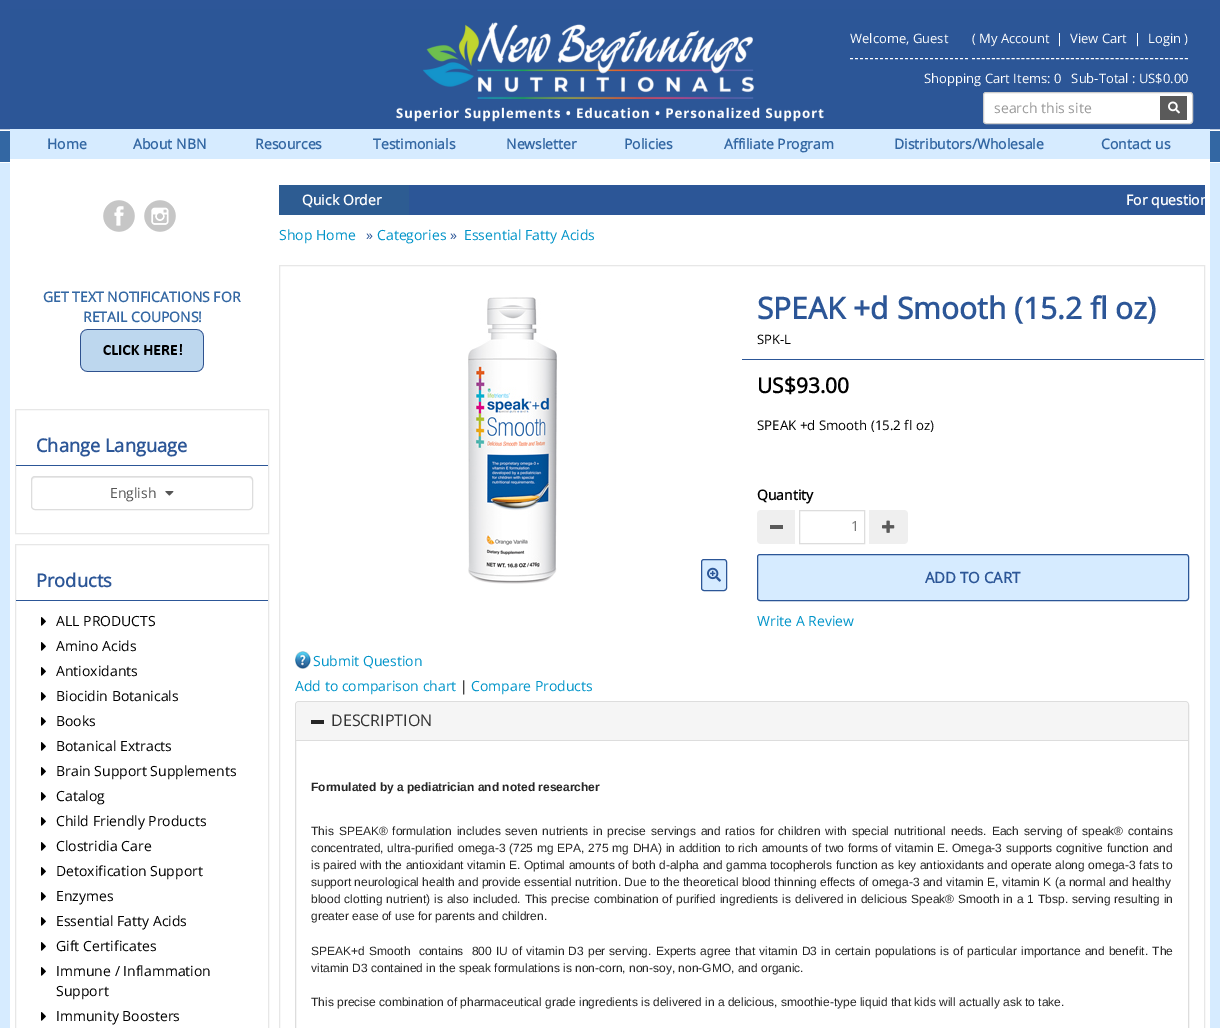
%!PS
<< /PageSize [1220 1028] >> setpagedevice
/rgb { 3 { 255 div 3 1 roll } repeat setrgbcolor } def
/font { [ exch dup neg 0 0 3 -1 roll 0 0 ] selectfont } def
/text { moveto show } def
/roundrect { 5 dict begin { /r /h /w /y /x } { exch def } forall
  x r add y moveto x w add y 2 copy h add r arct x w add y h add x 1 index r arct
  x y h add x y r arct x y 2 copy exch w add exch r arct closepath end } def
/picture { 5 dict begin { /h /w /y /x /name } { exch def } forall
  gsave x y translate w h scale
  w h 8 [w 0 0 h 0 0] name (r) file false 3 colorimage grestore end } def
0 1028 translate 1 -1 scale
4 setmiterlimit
214 235 255 rgb
0 0 1220 1028 rectfill
(img_01.rgb) 0 0 1220 163 picture
255 255 255 rgb
10 159 1200 869 rectfill
(img_02.rgb) 10 9 1200 120 picture
[3 2] 0 setdash
850 58.5 moveto 118 0 rlineto stroke
[3 1.95] 0 setdash
972 58.5 moveto 216 0 rlineto stroke
983.5 92.5 209 31 2.5 roundrect gsave fill grestore
204 204 204 rgb
[] 0 setdash
stroke
90 90 90 rgb
1160 96 27 24 rectfill
(img_03.rgb) 1168 101 12 13 picture
214 235 255 rgb
10 129 1200 30 rectfill
(img_04.rgb) 103 200 32 32 picture
(img_05.rgb) 144 200 32 32 picture
(img_06.rgb) 80 329 124 43 picture
231 231 231 rgb
15.5 409.5 253 124 rectstroke
44 86 151 rgb
16 465 252 1 rectfill
236 236 236 rgb
35 478 moveto 214 0 rlineto 2 0 3 1 3 3 rcurveto 0 -1 rlineto 0 -2 -1 -3 -3 -3 rcurveto -214 0 rlineto -2 0 -3 1 -3 3 rcurveto 0 1 rlineto 0 -2 1 -3 3 -3 rcurveto closepath fill
221 221 221 rgb
31.5 476.5 221 33 3.5 roundrect stroke
(img_07.rgb) 165 491 9 5 picture
231 231 231 rgb
15.5 544.5 253 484 rectstroke
44 86 151 rgb
16 600 252 1 rectfill
(img_08.rgb) 41 617 5 9 picture
(img_08.rgb) 41 642 5 9 picture
(img_08.rgb) 41 667 5 9 picture
(img_08.rgb) 41 692 5 9 picture
(img_08.rgb) 41 717 5 9 picture
(img_08.rgb) 41 742 5 9 picture
(img_08.rgb) 41 767 5 9 picture
(img_08.rgb) 41 792 5 9 picture
(img_08.rgb) 41 817 5 9 picture
(img_08.rgb) 41 842 5 9 picture
(img_08.rgb) 41 867 5 9 picture
(img_08.rgb) 41 892 5 9 picture
(img_08.rgb) 41 917 5 9 picture
(img_08.rgb) 41 942 5 9 picture
(img_08.rgb) 41 967 5 9 picture
(img_08.rgb) 41 1012 5 9 picture
45 92 146 rgb
279 185 130 30 rectfill
44 86 151 rgb
409 185 796 30 rectfill
231 231 231 rgb
279.5 265.5 925 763 rectstroke
(img_09.rgb) 468 297 89 287 picture
214 235 255 rgb
701.5 559.5 25 31 2.5 roundrect gsave fill grestore
44 86 151 rgb
stroke
(img_10.rgb) 707 567 14 15 picture
742 359 462 1 rectfill
239 239 239 rgb
761 510 moveto 34 0 rlineto 0 34 rlineto -34 0 rlineto -2 0 -4 -2 -4 -4 rcurveto 0 -26 rlineto 0 -2 2 -4 4 -4 rcurveto closepath fill
90 90 90 rgb
770 525 13 4 rectfill
221 221 221 rgb
799.5 510.5 65 33 rectstroke
239 239 239 rgb
869 510 moveto 35 0 rlineto 2 0 4 2 4 4 rcurveto 0 26 rlineto 0 2 -2 4 -4 4 rcurveto -35 0 rlineto closepath fill
(img_11.rgb) 882 520 13 13 picture
214 235 255 rgb
757.5 554.5 431 46 2.5 roundrect gsave fill grestore
44 86 151 rgb
stroke
(img_12.rgb) 295 651 16 18 picture
221 221 221 rgb
295.5 701.5 893 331 3.5 roundrect stroke
245 245 245 rgb
299 702 moveto 886 0 rlineto 1.5 0 3 1.5 3 3 rcurveto 0 35 rlineto -892 0 rlineto 0 -35 rlineto 0 -1.5 1.5 -3 3 -3 rcurveto closepath fill
221 221 221 rgb
296 740 892 1 rectfill
38 38 38 rgb
311 720 13 4 rectfill
/OpenSans-Regular 13 font
255 255 255 rgb
(Welcome, Guest) 850 43 text
(\( My Account) 972 43 text
(|) 1056 43 text
(View Cart) 1070 43 text
(|) 1134 43 text
(Login \)) 1148 43 text
(Shopping Cart Items: 0   Sub-Total : US$0.00) 924 83 text
/OpenSans-Regular 14 font
153 153 153 rgb
(search this site) 994 113 text
/OpenSans-Bold 14 font
51 103 163 rgb
(Home) 47 149 text
(About NBN) 133 149 text
(Resources) 255 149 text
(Testimonials) 373 149 text
(Newsletter) 506 149 text
(Policies) 624 149 text
(Affiliate Program) 724 149 text
(Distributors/Wholesale) 894 149 text
(Contact us) 1101 149 text
(GET TEXT NOTIFICATIONS FOR) 43 302 text
(RETAIL COUPONS!) 83 322 text
/OpenSans-Bold 18.25 font
44 86 151 rgb
(Change Language) 36 452 text
/OpenSans-Regular 14 font
85 85 85 rgb
(English) 110 498 text
/OpenSans-Bold 18.25 font
44 86 151 rgb
(Products) 36 587 text
/OpenSans-Regular 14 font
0 0 0 rgb
(ALL PRODUCTS) 56 626 text
(Amino Acids) 56 651 text
(Antioxidants) 56 676 text
(Biocidin Botanicals) 56 701 text
(Books) 56 726 text
(Botanical Extracts) 56 751 text
(Brain Support Supplements) 56 776 text
(Catalog) 56 801 text
(Child Friendly Products) 56 826 text
(Clostridia Care) 56 851 text
(Detoxification Support) 56 876 text
(Enzymes) 56 901 text
(Essential Fatty Acids) 56 926 text
(Gift Certificates) 56 951 text
(Immune / Inflammation) 56 976 text
(Support) 56 996 text
(Immunity Boosters) 56 1021 text
/OpenSans-Bold 14 font
255 255 255 rgb
(Quick Order) 302 205 text
gsave
409 185 796 35 rectclip
(For question) 1126 205 text
grestore
/OpenSans-Regular 14 font
0 148 201 rgb
(Shop Home) 279 240 text
44 86 151 rgb
(») 366 240 text
0 148 201 rgb
(Categories) 377 240 text
44 86 151 rgb
(») 450 240 text
0 148 201 rgb
(Essential Fatty Acids) 464 240 text
/OpenSans-Bold 30 font
44 86 151 rgb
(SPEAK +d Smooth \(15.2 fl oz\)) 757 319 text
/OpenSans-Regular 13 font
0 0 0 rgb
(SPK-L) 757 344 text
/OpenSans-Bold 21 font
(US$93.00) 757 393 text
/OpenSans-Regular 13.3 font
(SPEAK +d Smooth \(15.2 fl oz\)) 757 430 text
/OpenSans-Bold 14 font
(Quantity) 757 500 text
/OpenSans-Regular 14 font
119 119 119 rgb
(1) 851 531 text
/OpenSans-Bold 15 font
44 86 151 rgb
(ADD TO CART) 925 583 text
/OpenSans-Regular 14 font
0 148 201 rgb
(Write A Review) 757 626 text
(Submit Question) 313 666 text
(Add to comparison chart) 295 691 text
0 0 0 rgb
(|) 460 691 text
0 148 201 rgb
(Compare Products) 471 691 text
/OpenSans-Regular 16 font
51 51 51 rgb
(DESCRIPTION) 331 726 text
/LiberationSans-Bold 12 font
38 38 38 rgb
(Formulated by a pediatrician and noted researcher) 311 791 text
/LiberationSans-Regular 12 font
311 835 moveto 1.55 0 32 (This SPEAK® formulation includes seven nutrients in precise servings and ratios for children with special nutritional needs. Each serving of speak® contains) widthshow
311 852 moveto 0.45 0 32 (concentrated, ultra-purified omega-3 \(725 mg EPA, 275 mg DHA\) in addition to rich amounts of two forms of vitamin E. Omega-3 supports cognitive function and) widthshow
311 869 moveto 0.3 0 32 (is paired with the antioxidant vitamin E. Optimal amounts of both d-alpha and gamma tocopherols function as key antioxidants and operate along omega-3 fats to) widthshow
(support neurological health and provide essential nutrition. Due to the theoretical blood thinning effects of omega-3 and vitamin E, vitamin K \(a normal and healthy) 311 886 text
311 903 moveto 0.6 0 32 (blood clotting nutrient\) is also included. This precise combination of purified ingredients is delivered in delicious Speak® Smooth in a 1 Tbsp. serving resulting in) widthshow
(greater ease of use for parents and children.) 311 920 text
311 955 moveto 0.85 0 32 (SPEAK+d Smooth  contains  800 IU of vitamin D3 per serving. Experts agree that vitamin D3 in certain populations is of particular importance and benefit. The) widthshow
(vitamin D3 contained in the speak formulations is non-corn, non-soy, non-GMO, and organic.) 311 972 text
(This precise combination of pharmaceutical grade ingredients is delivered in a delicious, smoothie-type liquid that kids will actually ask to take.) 311 1006 text
showpage
